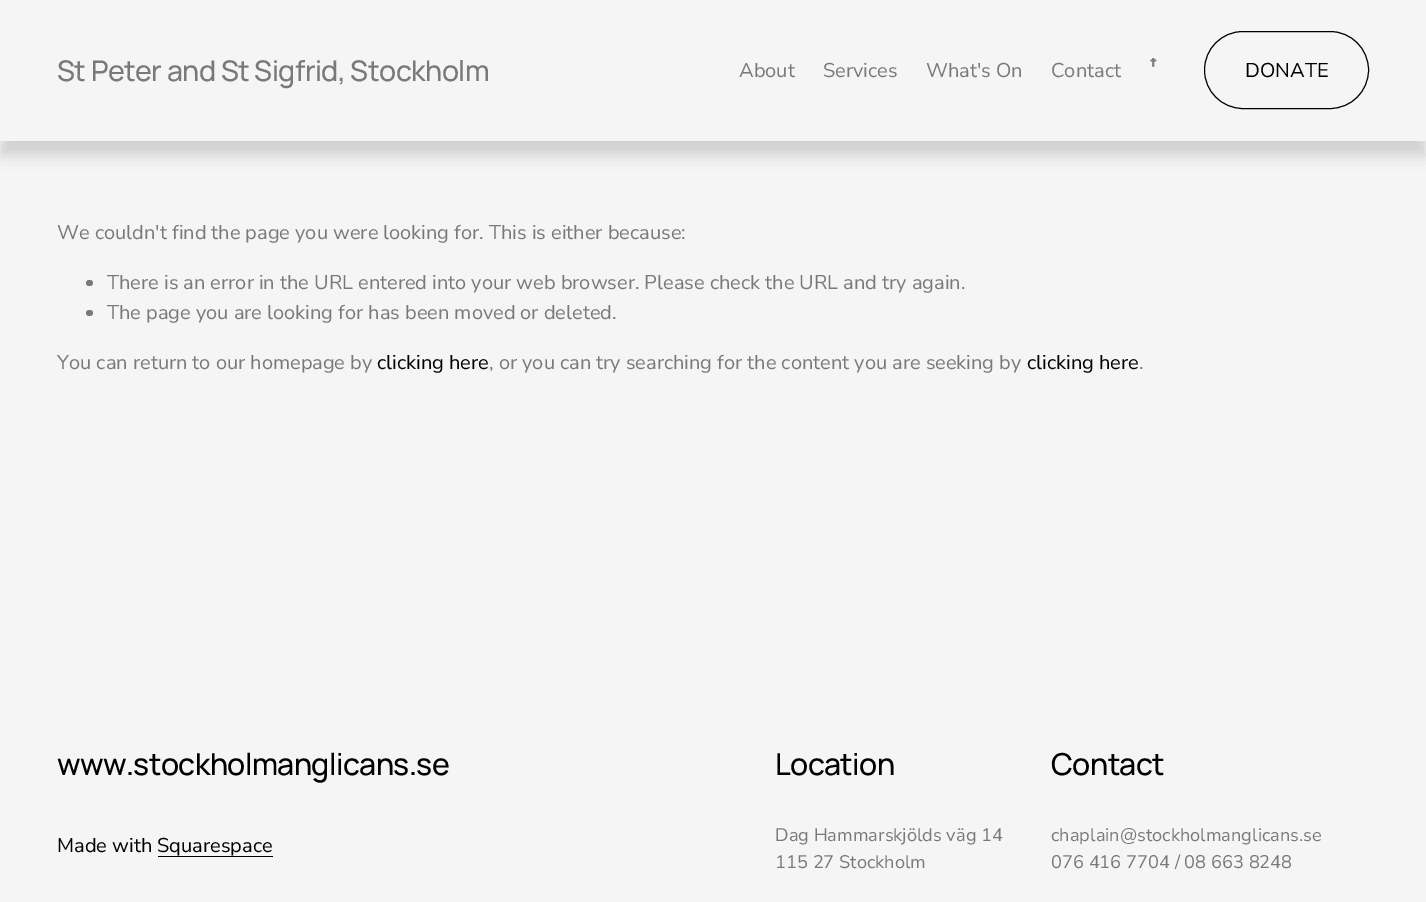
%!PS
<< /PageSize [1426 902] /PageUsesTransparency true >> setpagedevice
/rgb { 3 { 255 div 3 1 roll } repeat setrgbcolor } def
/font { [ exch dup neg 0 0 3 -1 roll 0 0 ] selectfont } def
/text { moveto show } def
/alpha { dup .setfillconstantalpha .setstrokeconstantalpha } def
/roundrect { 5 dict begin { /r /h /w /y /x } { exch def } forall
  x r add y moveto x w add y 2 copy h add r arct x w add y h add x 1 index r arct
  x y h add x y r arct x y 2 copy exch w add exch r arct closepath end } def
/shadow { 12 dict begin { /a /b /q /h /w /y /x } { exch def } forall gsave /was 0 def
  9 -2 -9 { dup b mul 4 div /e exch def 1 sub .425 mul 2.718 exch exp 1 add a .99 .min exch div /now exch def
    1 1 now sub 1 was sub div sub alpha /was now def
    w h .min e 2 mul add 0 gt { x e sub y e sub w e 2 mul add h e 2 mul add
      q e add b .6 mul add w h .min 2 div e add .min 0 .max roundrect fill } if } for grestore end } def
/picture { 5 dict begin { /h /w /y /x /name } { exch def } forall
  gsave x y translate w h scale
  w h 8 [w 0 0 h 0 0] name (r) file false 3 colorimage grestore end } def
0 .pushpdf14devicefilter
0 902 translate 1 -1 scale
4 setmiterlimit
245 245 245 rgb
0 0 1426 902 rectfill
gsave
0 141 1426 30 rectclip
208 208 208 rgb
0 15 1426 141 0 7.5 1 shadow
grestore
(img_01.rgb) 1150 58 7 9 picture
0 0 0 rgb
1204.5 31.5 164 77 38.5 roundrect stroke
121 121 121 rgb
86 280 7 6 3 roundrect fill
86 310 7 6 3 roundrect fill
0 0 0 rgb
158 856 115 1 rectfill
/Manrope-Medium 28.5 font
121 121 121 rgb
57 81 moveto -0.55 0 (St Peter and St Sigfrid, Stockholm) ashow
/NunitoSans-Regular 20 font
(About) 739 77 text
(Services) 823 77 text
(What's On) 926 77 text
(Contact) 1051 77 text
0 0 0 rgb
(DONATE) 1245 77 text
121 121 121 rgb
(We couldn't find the page you were looking for. This is either because:) 57 239 text
(There is an error in the URL entered into your web browser. Please check the URL and try again.) 107 289 text
(The page you are looking for has been moved or deleted.) 107 319 text
(You can return to our homepage by) 57 369 text
0 0 0 rgb
(clicking here) 377 369 text
121 121 121 rgb
(, or you can try searching for the content you are seeking by) 489 369 text
0 0 0 rgb
(clicking here) 1027 369 text
121 121 121 rgb
(.) 1139 369 text
/Manrope-Medium 30.25 font
0 0 0 rgb
57 775 moveto -0.6 0 (www.stockholmanglicans.se) ashow
775 775 moveto -0.6 0 (Location) ashow
/NunitoSans-Regular 18.25 font
121 121 121 rgb
(Dag Hammarskjölds väg 14) 775 841 text
(115 27 Stockholm) 775 868 text
/Manrope-Medium 30.25 font
0 0 0 rgb
1051 775 moveto -0.6 0 (Contact) ashow
/NunitoSans-Regular 18.25 font
121 121 121 rgb
(chaplain@stockholmanglicans.se) 1051 841 text
(076 416 7704 / 08 663 8248) 1051 868 text
/NunitoSans-Regular 20 font
0 0 0 rgb
(Made with Squarespace) 57 852 text
.poppdf14devicefilter showpage
